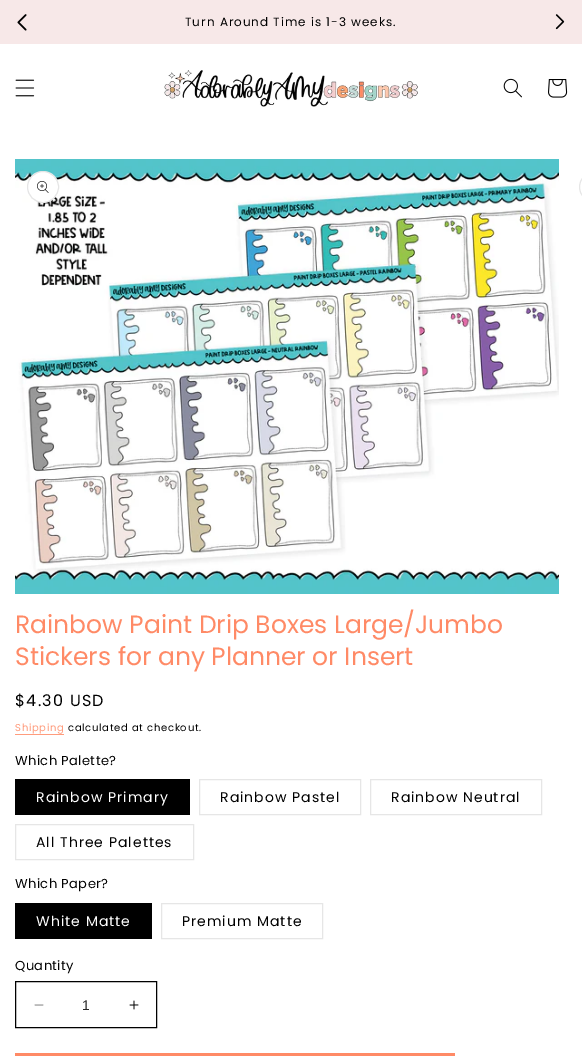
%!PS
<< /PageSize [582 1056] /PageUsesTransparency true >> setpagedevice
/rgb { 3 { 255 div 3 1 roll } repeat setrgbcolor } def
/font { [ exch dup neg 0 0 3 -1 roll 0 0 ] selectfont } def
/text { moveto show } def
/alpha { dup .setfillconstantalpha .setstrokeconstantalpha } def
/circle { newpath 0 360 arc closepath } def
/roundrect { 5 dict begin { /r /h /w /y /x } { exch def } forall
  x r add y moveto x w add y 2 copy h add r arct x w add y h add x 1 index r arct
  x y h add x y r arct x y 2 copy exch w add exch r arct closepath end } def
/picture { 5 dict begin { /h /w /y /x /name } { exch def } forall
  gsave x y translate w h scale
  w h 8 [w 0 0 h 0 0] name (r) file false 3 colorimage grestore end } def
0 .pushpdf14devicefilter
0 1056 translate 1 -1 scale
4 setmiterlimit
255 255 255 rgb
0 0 582 1056 rectfill
247 232 232 rgb
0 0 582 44 rectfill
(img_01.rgb) 17 14 10 17 picture
(img_02.rgb) 555 14 10 16 picture
(img_03.rgb) 15 79 20 18 picture
(img_04.rgb) 164 70 254 37 picture
(img_05.rgb) 503 78 19 20 picture
(img_06.rgb) 548 79 20 19 picture
(img_07.rgb) 15 159 544 435 picture
255 255 255 rgb
43 187 16 circle fill
0.1 alpha
0 0 0 rgb
43 187 15.5 circle stroke
1 alpha
(img_08.rgb) 37 181 12 12 picture
230 230 230 rgb
579.5 171.5 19 31 15.5 roundrect stroke
255 156 125 rgb
15 734 49 1 rectfill
0 0 0 rgb
15 779 175 36 rectfill
230 230 230 rgb
199.5 779.5 161 35 rectstroke
370.5 779.5 171 35 rectstroke
15.5 824.5 178 35 rectstroke
0 0 0 rgb
15 903 137 36 rectfill
230 230 230 rgb
161.5 903.5 161 35 rectstroke
(img_09.rgb) 34 1004 10 2 picture
(img_10.rgb) 129 1000 10 10 picture
0 0 0 rgb
15.5 981.5 141 46 rectstroke
255 138 102 rgb
15 1053 440 3 rectfill
/Poppins-Regular 12 font
0 0 0 rgb
185 26 moveto 1 0 (Turn Around Time is 1-3 weeks.) ashow
/Poppins-Regular 25 font
255 138 102 rgb
(Rainbow Paint Drip Boxes Large/Jumbo) 15 633 text
(Stickers for any Planner or Insert) 15 665 text
/Poppins-Regular 16 font
0 0 0 rgb
15 706 moveto 1.25 0 ($4.30 USD) ashow
/Poppins-Regular 10 font
255 156 125 rgb
15 731 moveto 0.7 0 (Shipping) ashow
0 0 0 rgb
68 731 moveto 0.7 0 (calculated at checkout.) ashow
/Poppins-Regular 13 font
15 765 moveto 0.4 0 (Which Palette?) ashow
/Poppins-Regular 14 font
255 255 255 rgb
36 802 moveto 1 0 (Rainbow Primary) ashow
0 0 0 rgb
220 802 moveto 1 0 (Rainbow Pastel) ashow
391 802 moveto 1 0 (Rainbow Neutral) ashow
36 847 moveto 1 0 (All Three Palettes) ashow
/Poppins-Regular 13 font
15 888 moveto 0.4 0 (Which Paper?) ashow
/Poppins-Regular 14 font
255 255 255 rgb
36 926 moveto 1 0 (White Matte) ashow
0 0 0 rgb
182 926 moveto 1 0 (Premium Matte) ashow
/Poppins-Regular 13 font
15 970 moveto 0.4 0 (Quantity) ashow
/LiberationSans-Regular 14 font
38 38 38 rgb
(1) 82 1010 text
.poppdf14devicefilter showpage
